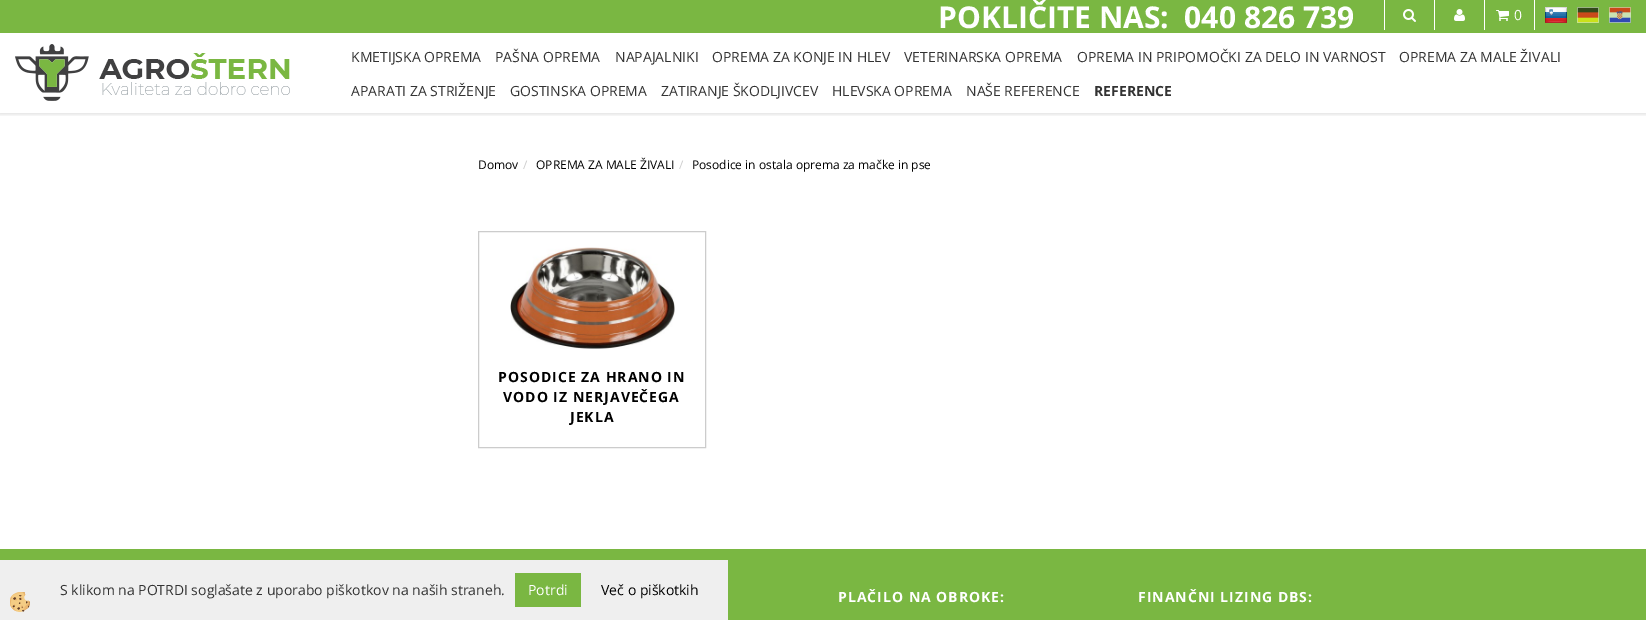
%!PS
<< /PageSize [1646 620] /PageUsesTransparency true >> setpagedevice
/rgb { 3 { 255 div 3 1 roll } repeat setrgbcolor } def
/font { [ exch dup neg 0 0 3 -1 roll 0 0 ] selectfont } def
/text { moveto show } def
/alpha { dup .setfillconstantalpha .setstrokeconstantalpha } def
/roundrect { 5 dict begin { /r /h /w /y /x } { exch def } forall
  x r add y moveto x w add y 2 copy h add r arct x w add y h add x 1 index r arct
  x y h add x y r arct x y 2 copy exch w add exch r arct closepath end } def
/shadow { 12 dict begin { /a /b /q /h /w /y /x } { exch def } forall gsave /was 0 def
  9 -2 -9 { dup b mul 4 div /e exch def 1 sub .425 mul 2.718 exch exp 1 add a .99 .min exch div /now exch def
    1 1 now sub 1 was sub div sub alpha /was now def
    w h .min e 2 mul add 0 gt { x e sub y e sub w e 2 mul add h e 2 mul add
      q e add b .6 mul add w h .min 2 div e add .min 0 .max roundrect fill } if } for grestore end } def
/picture { 5 dict begin { /h /w /y /x /name } { exch def } forall
  gsave x y translate w h scale
  w h 8 [w 0 0 h 0 0] name (r) file false 3 colorimage grestore end } def
0 .pushpdf14devicefilter
0 620 translate 1 -1 scale
4 setmiterlimit
255 255 255 rgb
0 0 1646 620 rectfill
gsave
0 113 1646 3 rectclip
0 0 0 rgb
-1 33 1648 82 0 1.5 0.09 shadow
grestore
122 183 66 rgb
0 0 1646 33 rectfill
255 255 255 rgb
1384 0 1 30 rectfill
(img_01.rgb) 1403 9 13 13 picture
1434 0 1 30 rectfill
(img_02.rgb) 1454 9 11 12 picture
1484 0 1 30 rectfill
(img_03.rgb) 1496 10 13 11 picture
1534 0 1 30 rectfill
(img_04.rgb) 1545 7 22 16 picture
(img_05.rgb) 1577 7 22 16 picture
(img_06.rgb) 1609 7 22 16 picture
(img_07.rgb) 15 44 275 57 picture
204 204 204 rgb
478.5 231.5 227 216 rectstroke
(img_08.rgb) 510 247 165 102 picture
122 183 66 rgb
0 549 1646 71 rectfill
239 239 239 rgb
0 560 728 60 rectfill
(img_09.rgb) 10 592 20 20 picture
122 183 66 rgb
515 573 66 34 rectfill
/OpenSans-Bold 30 font
255 255 255 rgb
(POKLIČITE NAS:  040 826 739) 938 28 text
/OpenSans-Regular 14 font
(0) 1514 20 text
51 51 51 rgb
(KMETIJSKA OPREMA) 351 62 text
(PAŠNA OPREMA) 495 62 text
(NAPAJALNIKI) 615 62 text
(OPREMA ZA KONJE IN HLEV) 712 62 text
(VETERINARSKA OPREMA) 904 62 text
(OPREMA IN PRIPOMOČKI ZA DELO IN VARNOST) 1077 62 text
(OPREMA ZA MALE ŽIVALI) 1399 62 text
(APARATI ZA STRIŽENJE) 351 96 text
(GOSTINSKA OPREMA) 510 96 text
(ZATIRANJE ŠKODLJIVCEV) 661 96 text
(HLEVSKA OPREMA) 832 96 text
(NAŠE REFERENCE) 966 96 text
/OpenSans-Bold 14 font
(REFERENCE) 1094 96 text
/OpenSans-Regular 12 font
0 0 0 rgb
(Domov) 478 169 text
204 204 204 rgb
(/) 523 169 text
0 0 0 rgb
(OPREMA ZA MALE ŽIVALI) 536 169 text
204 204 204 rgb
(/) 679 169 text
0 0 0 rgb
(Posodice in ostala oprema za mačke in pse) 692 169 text
/OpenSans-Bold 14 font
498 382 moveto 1 0 (POSODICE ZA HRANO IN) ashow
503 402 moveto 1 0 (VODO IZ NERJAVEČEGA) ashow
570 422 moveto 1 0 (JEKLA) ashow
255 255 255 rgb
838 602 moveto 1 0 (PLAČILO NA OBROKE:) ashow
1138 602 moveto 1 0 (FINANČNI LIZING DBS:) ashow
/OpenSans-Regular 14 font
51 51 51 rgb
(S klikom na POTRDI soglašate z uporabo piškotkov na naših straneh.) 60 595 text
255 255 255 rgb
(Potrdi) 528 595 text
0 0 0 rgb
(Več o piškotkih) 601 595 text
.poppdf14devicefilter showpage
